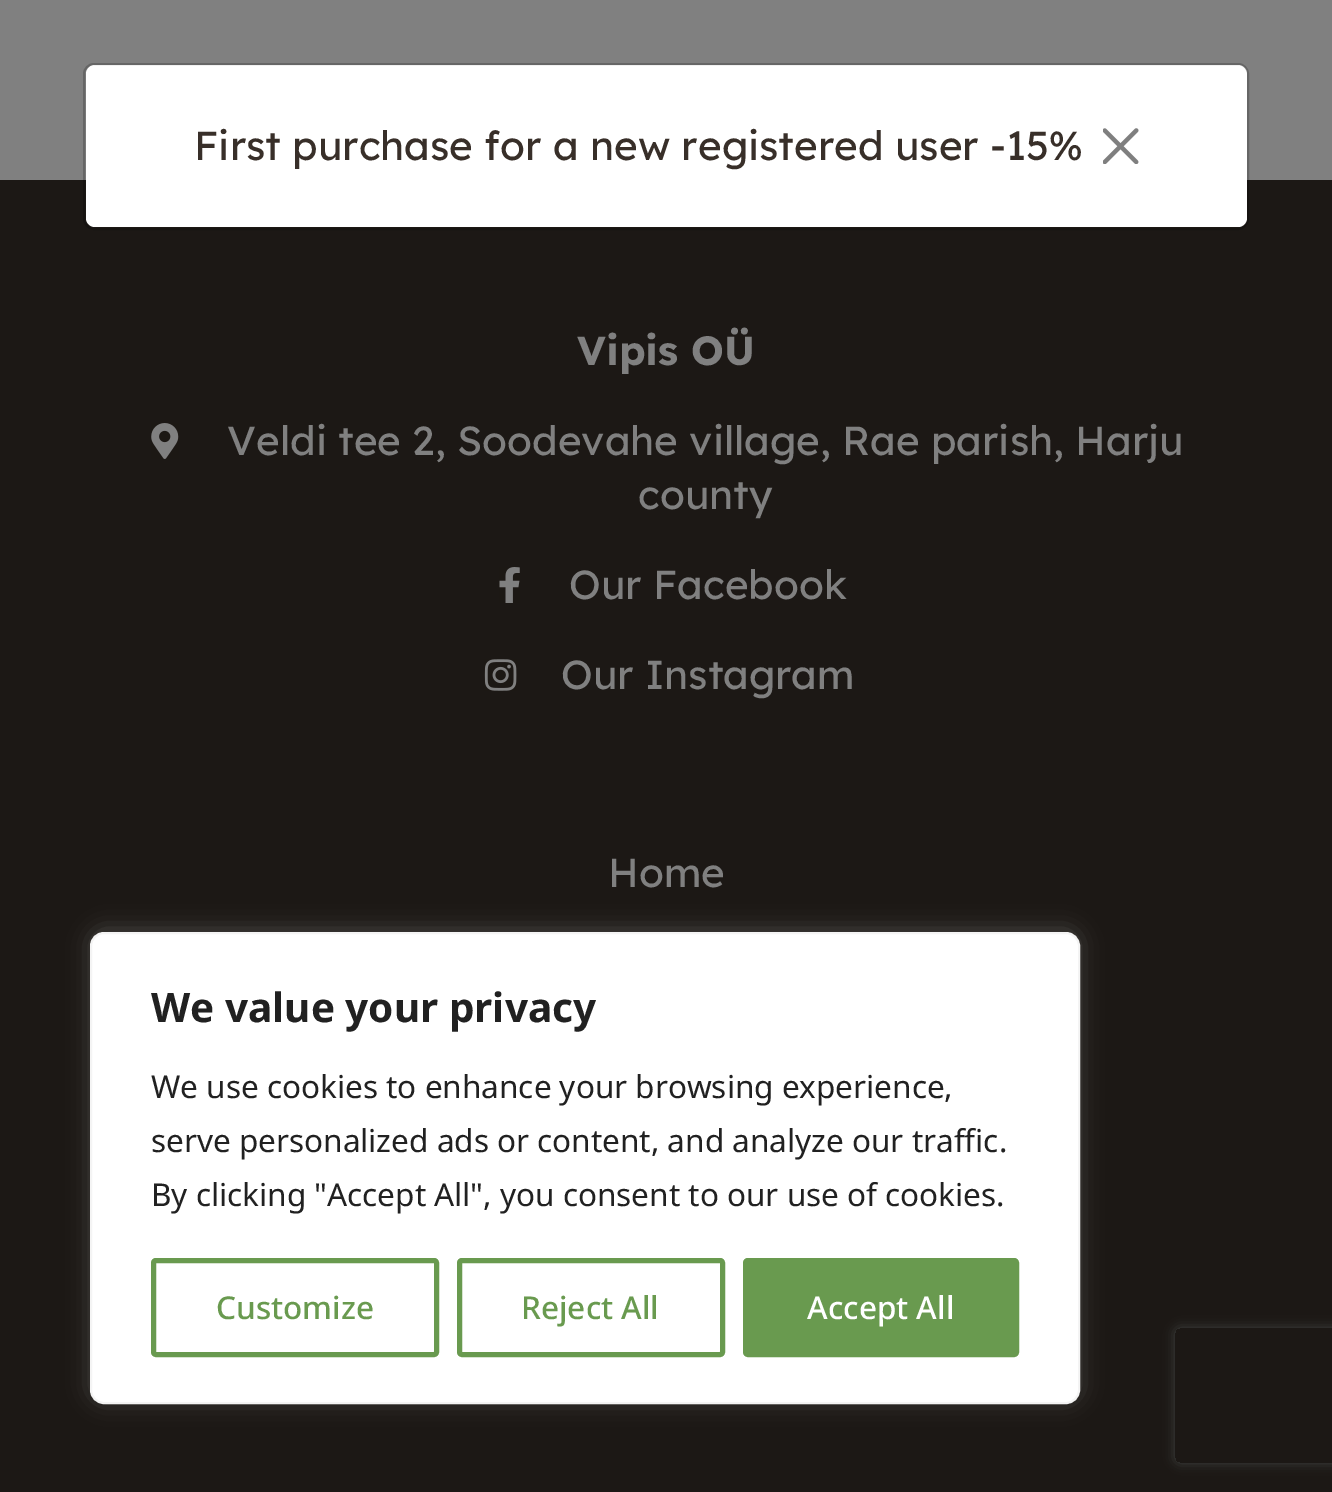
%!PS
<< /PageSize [1332 1492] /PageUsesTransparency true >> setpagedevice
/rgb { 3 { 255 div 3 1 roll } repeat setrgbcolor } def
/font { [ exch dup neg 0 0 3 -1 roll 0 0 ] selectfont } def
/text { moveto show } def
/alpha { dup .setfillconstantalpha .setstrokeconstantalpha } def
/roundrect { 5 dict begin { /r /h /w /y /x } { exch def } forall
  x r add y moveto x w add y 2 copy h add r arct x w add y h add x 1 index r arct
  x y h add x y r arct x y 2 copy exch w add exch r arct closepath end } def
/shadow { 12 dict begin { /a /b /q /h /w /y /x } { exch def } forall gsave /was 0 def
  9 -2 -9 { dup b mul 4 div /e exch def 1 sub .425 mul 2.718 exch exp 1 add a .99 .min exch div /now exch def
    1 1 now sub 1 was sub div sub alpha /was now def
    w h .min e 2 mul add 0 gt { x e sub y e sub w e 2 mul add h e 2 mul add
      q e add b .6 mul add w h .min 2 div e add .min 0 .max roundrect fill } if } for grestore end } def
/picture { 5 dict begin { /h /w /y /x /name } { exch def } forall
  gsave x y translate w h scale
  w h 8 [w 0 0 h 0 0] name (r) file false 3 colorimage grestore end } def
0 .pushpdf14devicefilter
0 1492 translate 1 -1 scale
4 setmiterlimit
128 128 128 rgb
0 0 1332 1492 rectfill
28 24 21 rgb
0 180 1332 1312 rectfill
255 255 255 rgb
86 65 1161 162 9 roundrect fill
0.2 alpha
0 0 0 rgb
2 setlinewidth
84 64 1164 165 10 roundrect stroke
1 alpha
(img_01.rgb) 1103 128 36 36 picture
(img_02.rgb) 151 423 28 36 picture
(img_03.rgb) 499 567 21 36 picture
(img_04.rgb) 484 659 33 32 picture
172 171 171 rgb
90 929 990 473 14 11 0.3 shadow
255 255 255 rgb
91 933 988 470 13 roundrect gsave fill grestore
244 244 244 rgb
stroke
105 154 79 rgb
5 setlinewidth
153.5 1260.5 283 94 2.5 roundrect stroke
459.5 1260.5 263 94 2.5 roundrect stroke
745.5 1260.5 271 94 2.5 roundrect gsave fill grestore
stroke
gsave
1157 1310 moveto 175 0 rlineto 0 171 rlineto -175 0 rlineto closepath 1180 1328 moveto 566 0 rlineto 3 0 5 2 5 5 rcurveto 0 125 rlineto 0 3 -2 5 -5 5 rcurveto -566 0 rlineto -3 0 -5 -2 -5 -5 rcurveto 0 -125 rlineto 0 -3 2 -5 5 -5 rcurveto closepath eoclip newpath
64 64 64 rgb
1175 1328 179 135 5 5.5 1 shadow
grestore
/Lexend-Regular 40.5 font
56 47 41 rgb
(First purchase for a new registered user -15%) 194 160 text
/Lexend-Bold 40.5 font
128 128 128 rgb
(Vipis OÜ) 577 365 text
/Lexend-Regular 40.5 font
(Veldi tee 2, Soodevahe village, Rae parish, Harju) 227 455 text
(county) 638 509 text
(Our Facebook) 569 599 text
(Our Instagram) 561 689 text
(Home) 608 887 text
/NotoSans-Bold 40.5 font
33 33 33 rgb
(We value your privacy) 151 1022 text
/NotoSans-Regular 31.5 font
(We use cookies to enhance your browsing experience,) 151 1098 text
(serve personalized ads or content, and analyze our traffic.) 151 1152 text
(By clicking "Accept All", you consent to our use of cookies.) 151 1206 text
/NotoSans-Medium 31.5 font
105 154 79 rgb
(Customize) 216 1319 text
(Reject All) 521 1319 text
255 255 255 rgb
(Accept All) 807 1319 text
.poppdf14devicefilter showpage
